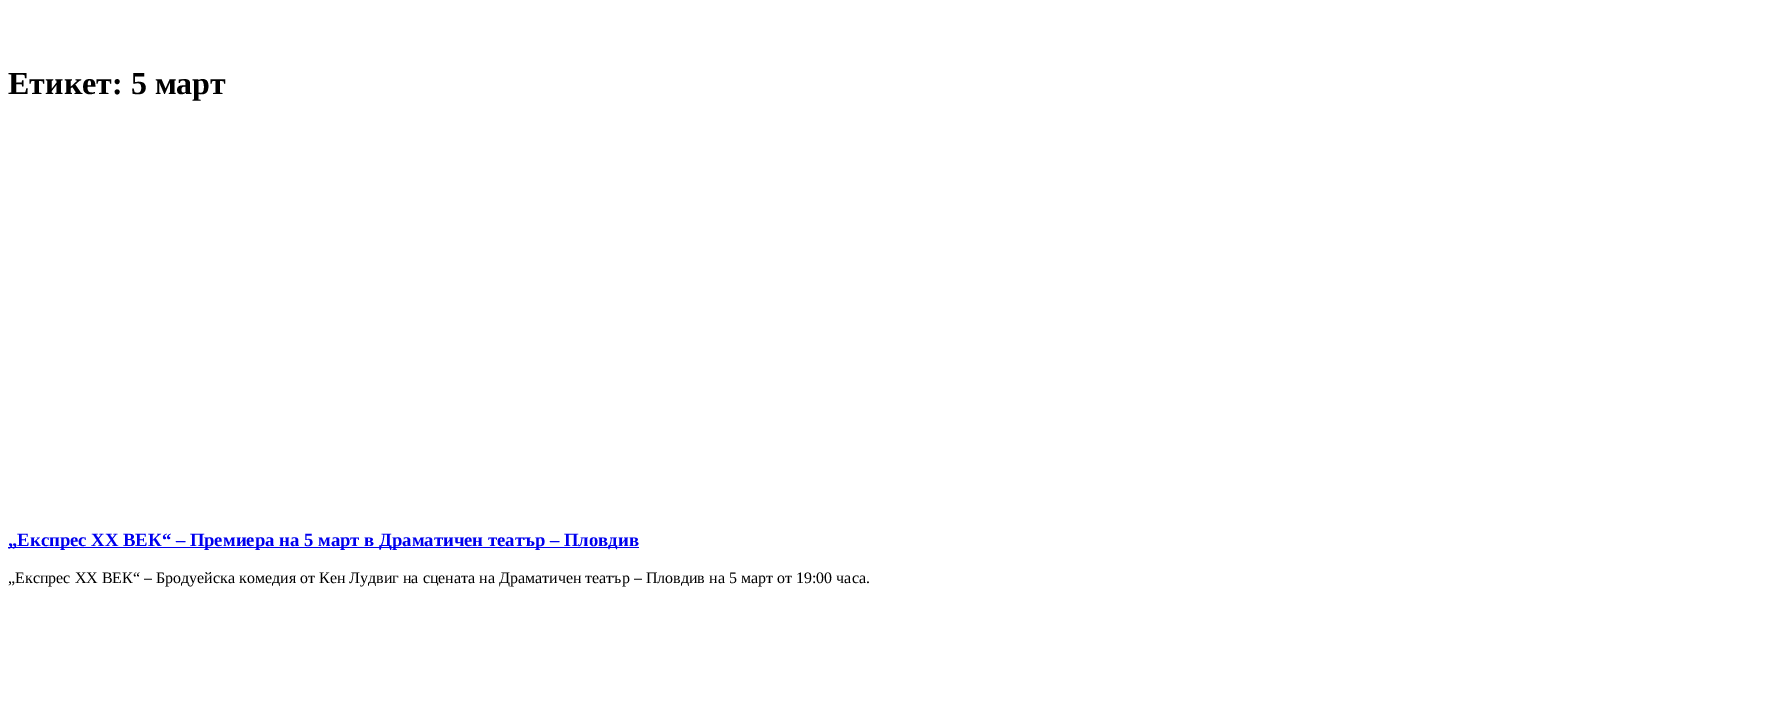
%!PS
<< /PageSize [1779 704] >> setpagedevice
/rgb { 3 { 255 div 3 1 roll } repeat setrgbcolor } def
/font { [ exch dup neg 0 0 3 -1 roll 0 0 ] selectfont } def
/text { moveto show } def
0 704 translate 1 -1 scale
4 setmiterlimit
255 255 255 rgb
0 0 1779 704 rectfill
0 0 238 rgb
8 547 631 1 rectfill
/LiberationSerif-Bold 32 font
0 0 0 rgb
(Етикет: 5 март) 8 94 text
/LiberationSerif-Bold 18.7 font
0 0 238 rgb
(„Експрес ХХ ВЕК“ – Премиера на 5 март в Драматичен театър – Пловдив) 8 546 text
/LiberationSerif-Regular 16 font
0 0 0 rgb
(„Експрес ХХ ВЕК“ – Бродуейска комедия от Кен Лудвиг на сцената на Драматичен театър – Пловдив на 5 март от 19:00 часа.) 8 583 text
showpage
